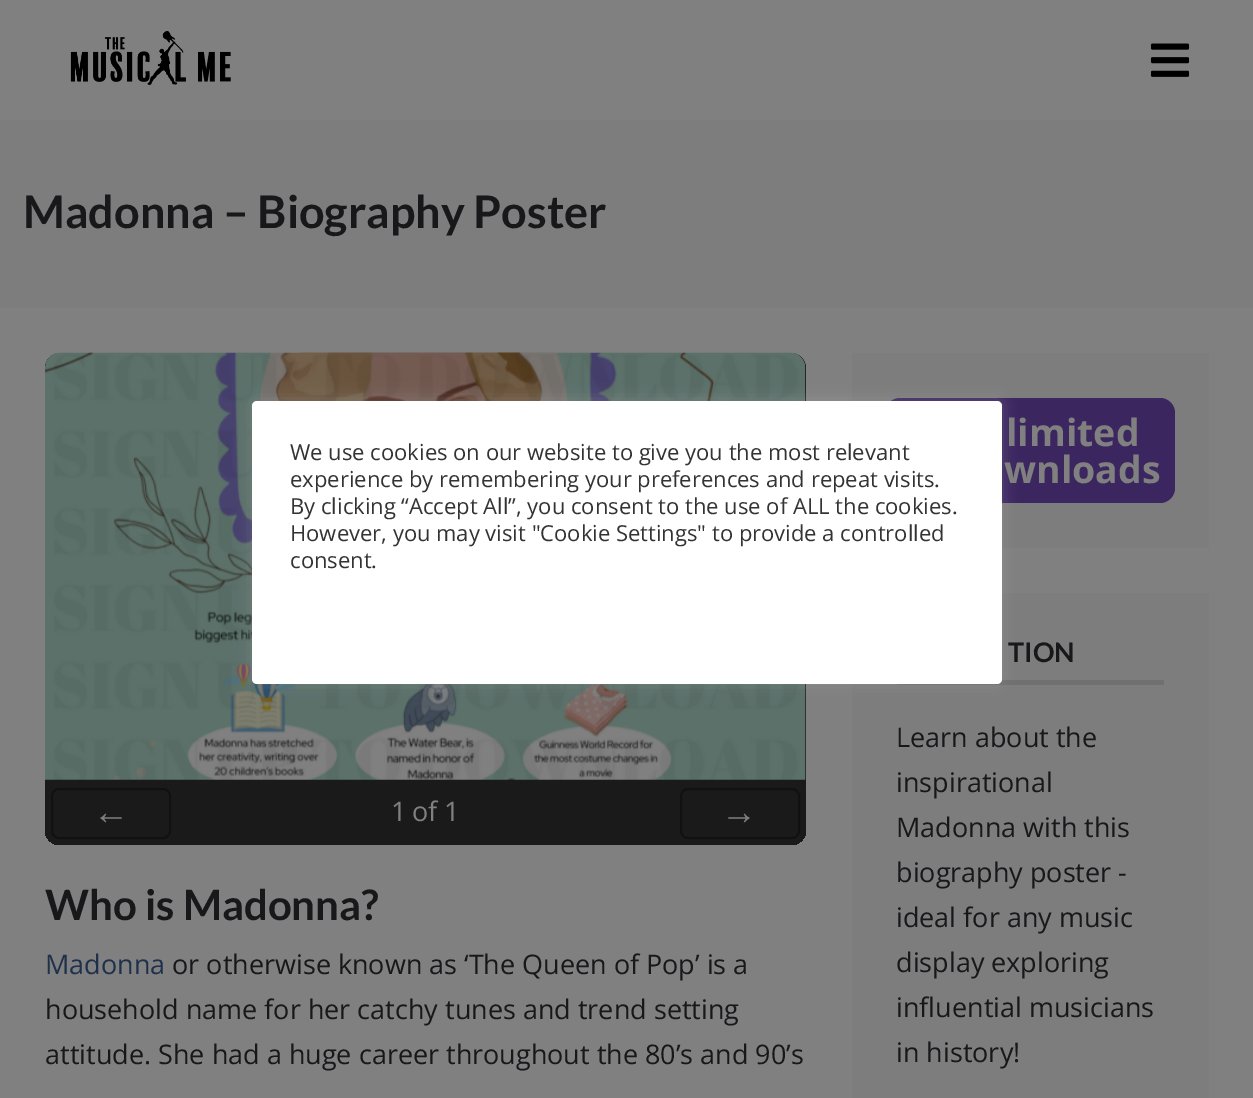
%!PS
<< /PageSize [1253 1098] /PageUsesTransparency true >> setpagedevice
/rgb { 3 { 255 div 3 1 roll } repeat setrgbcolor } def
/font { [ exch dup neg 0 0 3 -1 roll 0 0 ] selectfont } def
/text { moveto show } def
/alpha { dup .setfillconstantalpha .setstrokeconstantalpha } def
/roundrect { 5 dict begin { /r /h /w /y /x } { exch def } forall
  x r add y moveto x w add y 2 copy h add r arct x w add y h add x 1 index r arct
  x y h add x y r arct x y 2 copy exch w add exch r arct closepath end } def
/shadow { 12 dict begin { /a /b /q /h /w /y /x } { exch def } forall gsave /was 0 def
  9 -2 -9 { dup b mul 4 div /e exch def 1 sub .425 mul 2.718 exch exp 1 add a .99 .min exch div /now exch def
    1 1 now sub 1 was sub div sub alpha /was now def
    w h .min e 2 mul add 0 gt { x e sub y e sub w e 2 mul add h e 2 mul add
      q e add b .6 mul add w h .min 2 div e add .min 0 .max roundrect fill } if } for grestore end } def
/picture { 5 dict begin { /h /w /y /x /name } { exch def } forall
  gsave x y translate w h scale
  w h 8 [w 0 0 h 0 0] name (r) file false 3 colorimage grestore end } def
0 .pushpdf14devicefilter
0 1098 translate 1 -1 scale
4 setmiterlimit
128 128 128 rgb
0 0 1253 1098 rectfill
(img_01.rgb) 70 31 161 55 picture
(img_02.rgb) 1150 43 40 34 picture
125 125 125 rgb
0 120 1253 188 rectfill
26 26 26 rgb
60 353 moveto 731 0 rlineto 8.5 0 15 6.5 15 15 rcurveto 0 412 rlineto -761 0 rlineto 0 -412 rlineto 0 -8.5 6.5 -15 15 -15 rcurveto closepath fill
(img_03.rgb) 45 352 761 428 picture
51 788 749 51 rectfill
45 780 761 8 rectfill
gsave
45 353 761 492 15 roundrect clip newpath
800 786 6 59 rectfill
45 839 761 6 rectfill
45 786 6 59 rectfill
grestore
17 17 17 rgb
2 setlinewidth
52 789 118 49 7 roundrect stroke
681 789 118 49 7 roundrect stroke
125 125 125 rgb
852 353 357 195 rectfill
60 38 96 rgb
885 398 290 105 15 roundrect fill
125 125 125 rgb
852 593 357 505 rectfill
112 112 112 rgb
897 680 267 5 rectfill
172 171 171 rgb
252 399 750 284 5 7.5 0.3 shadow
255 255 255 rgb
252 401 750 283 5 roundrect fill
/Lato-Bold 45 font
24 24 27 rgb
(Madonna – Biography Poster) 23 228 text
/LiberationSans-Regular 36 font
128 128 128 rgb
(←) 93 824 text
/OpenSans-Regular 27 font
(1) 391 821 text
(of) 412 821 text
(1) 444 821 text
/LiberationSans-Regular 36 font
(→) 721 824 text
/Lato-Bold 42 font
24 24 27 rgb
(Who is Madonna?) 45 920 text
/OpenSans-Regular 27 font
30 48 74 rgb
(Madonna) 45 974 text
24 24 27 rgb
(or otherwise known as ‘The Queen of Pop’ is a) 172 974 text
(household name for her catchy tunes and trend setting) 45 1019 text
(attitude. She had a huge career throughout the 80’s and 90’s) 45 1064 text
/OpenSans-Bold 37.5 font
128 128 128 rgb
(limited) 1006 446 text
(wnloads) 1004 483 text
/Lato-Bold 27 font
24 24 27 rgb
(TION) 1008 662 text
/OpenSans-Regular 27 font
(Learn about the) 896 747 text
(inspirational) 896 792 text
(Madonna with this) 896 837 text
(biography poster -) 896 882 text
(ideal for any music) 896 927 text
(display exploring) 896 972 text
(influential musicians) 896 1017 text
(in history!) 896 1062 text
/OpenSans-Regular 22 font
51 51 51 rgb
(We use cookies on our website to give you the most relevant) 290 460 text
(experience by remembering your preferences and repeat visits.) 290 487 text
(By clicking “Accept All”, you consent to the use of ALL the cookies.) 290 514 text
(However, you may visit "Cookie Settings" to provide a controlled) 290 541 text
(consent.) 290 568 text
.poppdf14devicefilter showpage
